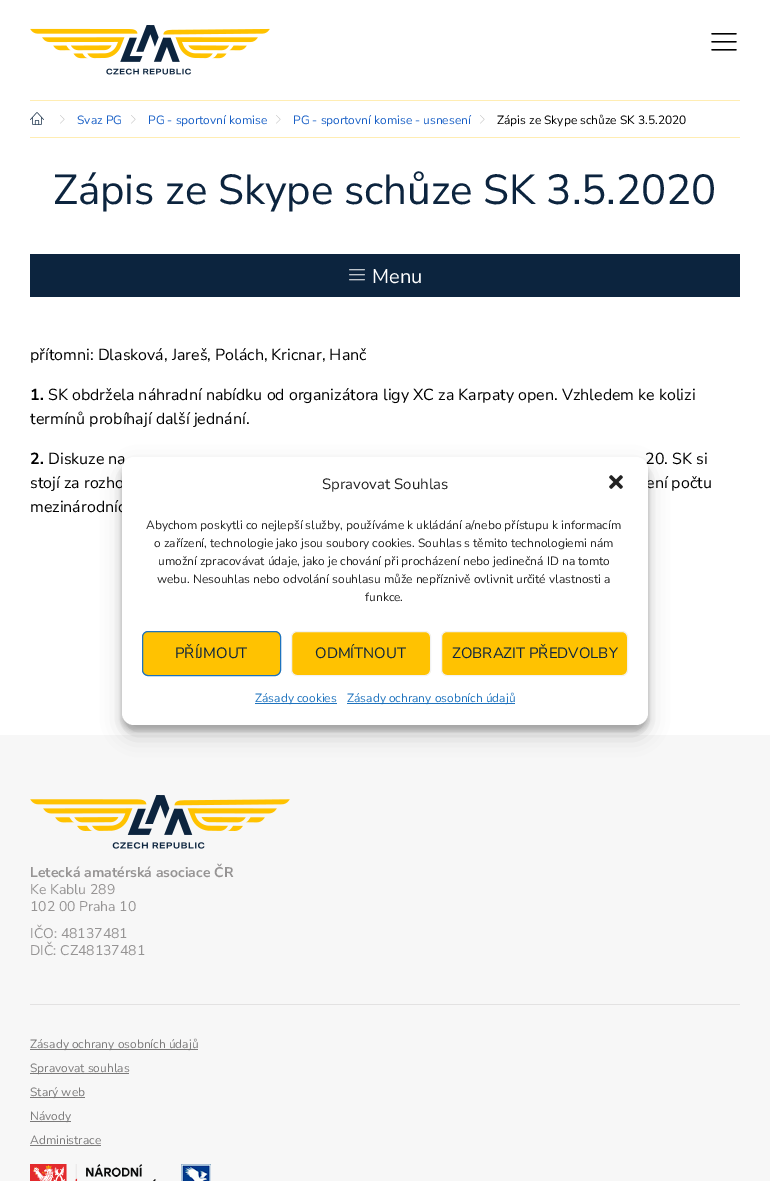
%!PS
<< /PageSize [770 1181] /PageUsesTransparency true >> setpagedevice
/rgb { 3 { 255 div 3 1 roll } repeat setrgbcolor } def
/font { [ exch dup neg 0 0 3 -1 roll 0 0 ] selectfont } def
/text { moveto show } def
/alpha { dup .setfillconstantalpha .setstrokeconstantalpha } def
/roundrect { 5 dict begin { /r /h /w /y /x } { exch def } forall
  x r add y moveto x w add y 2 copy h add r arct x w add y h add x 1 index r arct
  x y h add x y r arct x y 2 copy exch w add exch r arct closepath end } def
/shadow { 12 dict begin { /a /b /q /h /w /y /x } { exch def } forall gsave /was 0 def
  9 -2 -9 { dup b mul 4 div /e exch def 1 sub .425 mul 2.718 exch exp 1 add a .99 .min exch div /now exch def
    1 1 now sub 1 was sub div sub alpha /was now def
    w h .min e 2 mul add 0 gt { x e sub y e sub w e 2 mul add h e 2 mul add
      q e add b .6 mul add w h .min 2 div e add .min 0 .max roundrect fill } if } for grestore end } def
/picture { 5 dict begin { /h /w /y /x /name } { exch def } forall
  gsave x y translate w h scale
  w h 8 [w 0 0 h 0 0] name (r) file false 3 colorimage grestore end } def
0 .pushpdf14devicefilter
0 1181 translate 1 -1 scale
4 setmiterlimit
255 255 255 rgb
0 0 770 1181 rectfill
(img_01.rgb) 30 25 240 50 picture
(img_02.rgb) 711 33 26 18 picture
255 237 179 rgb
30 100 710 1 rectfill
30 137 710 1 rectfill
(img_03.rgb) 30 112 14 13 picture
(img_04.rgb) 60 115 5 9 picture
(img_04.rgb) 131 115 5 9 picture
(img_04.rgb) 276 115 5 9 picture
(img_04.rgb) 480 115 5 9 picture
12 36 62 rgb
30 254 710 43 rectfill
(img_05.rgb) 349 269 16 12 picture
247 247 247 rgb
0 735 770 446 rectfill
(img_06.rgb) 30 795 260 54 picture
227 226 226 rgb
30 1004 710 1 rectfill
123 122 122 rgb
30 1049 168 1 rectfill
30 1073 99 1 rectfill
30 1097 55 1 rectfill
30 1121 41 1 rectfill
30 1145 71 1 rectfill
(img_07.rgb) 30 1164 126 17 picture
(img_08.rgb) 181 1164 30 17 picture
0 0 0 rgb
122 463 526 268 12 3 0.23 shadow
122 467 526 268 12 10 0.19 shadow
/NunitoSans-Regular 12 font
24 95 198 rgb
(Svaz PG) 77 124 text
(PG - sportovní komise) 148 124 text
(PG - sportovní komise - usnesení) 293 124 text
0 0 0 rgb
(Zápis ze Skype schůze SK 3.5.2020) 497 124 text
/NunitoSans-Regular 42 font
12 36 62 rgb
(Zápis ze Skype schůze SK 3.5.2020) 53 204 text
/NunitoSans-Regular 20 font
255 255 255 rgb
(Menu) 372 283 text
/NunitoSans-Regular 16 font
0 0 0 rgb
(přítomni: Dlasková, Jareš, Polách, Kricnar, Hanč) 30 360 text
/NunitoSans-Bold 16 font
(1.) 30 400 text
/NunitoSans-Regular 16 font
(SK obdržela náhradní nabídku od organizátora ligy XC za Karpaty open. Vzhledem ke kolizi) 48 400 text
(termínů probíhají další jednání.) 30 424 text
/NunitoSans-Bold 16 font
(2.) 30 464 text
/NunitoSans-Regular 16 font
(Diskuze na) 48 464 text
(20. SK si) 645 464 text
(stojí za rozho) 30 488 text
(ení počtu) 646 488 text
(mezinárodníc) 30 512 text
/NunitoSans-Bold 14 font
150 148 148 rgb
(Letecká amatérská asociace ČR) 30 877 text
/NunitoSans-Regular 14 font
(Ke Kablu 289) 30 894 text
(102 00 Praha 10) 30 911 text
(IČO: 48137481) 30 938 text
(DIČ: CZ48137481) 30 955 text
/NunitoSans-Regular 12 font
123 122 122 rgb
(Zásady ochrany osobních údajů) 30 1048 text
(Spravovat souhlas) 30 1072 text
(Starý web) 30 1096 text
(Návody) 30 1120 text
(Administrace) 30 1144 text
255 255 255 rgb
122 457 526 268 12 roundrect fill
/NunitoSans-Regular 15 font
34 34 34 rgb
(Spravovat Souhlas) 322 489 text
(img_09.rgb) 609 475 14 14 picture
/NunitoSans-Regular 12 font
(Abychom poskytli co nejlepší služby, používáme k ukládání a/nebo přístupu k informacím) 146 529 text
(o zařízení, technologie jako jsou soubory cookies. Souhlas s těmito technologiemi nám) 154 547 text
(umožní zpracovávat údaje, jako je chování při procházení nebo jedinečná ID na tomto) 158 565 text
(webu. Nesouhlas nebo odvolání souhlasu může nepříznivě ovlivnit určité vlastnosti a) 157 583 text
(funkce.) 365 601 text
255 194 1 rgb
142.5 631.5 138 44 5.5 roundrect gsave fill grestore
30 115 190 rgb
stroke
/NunitoSans-Regular 15 font
12 36 62 rgb
(PŘÍJMOUT) 175 658 text
255 194 1 rgb
291.5 631.5 139 44 5.5 roundrect gsave fill grestore
242 242 242 rgb
stroke
12 36 62 rgb
(ODMÍTNOUT) 315 658 text
255 194 1 rgb
441.5 631.5 186 44 5.5 roundrect gsave fill grestore
242 242 242 rgb
stroke
12 36 62 rgb
(ZOBRAZIT PŘEDVOLBY) 452 658 text
30 115 190 rgb
255 703 82 1 rectfill
/NunitoSans-Regular 12 font
(Zásady cookies) 255 702 text
347 703 168 1 rectfill
(Zásady ochrany osobních údajů) 347 702 text
.poppdf14devicefilter showpage
